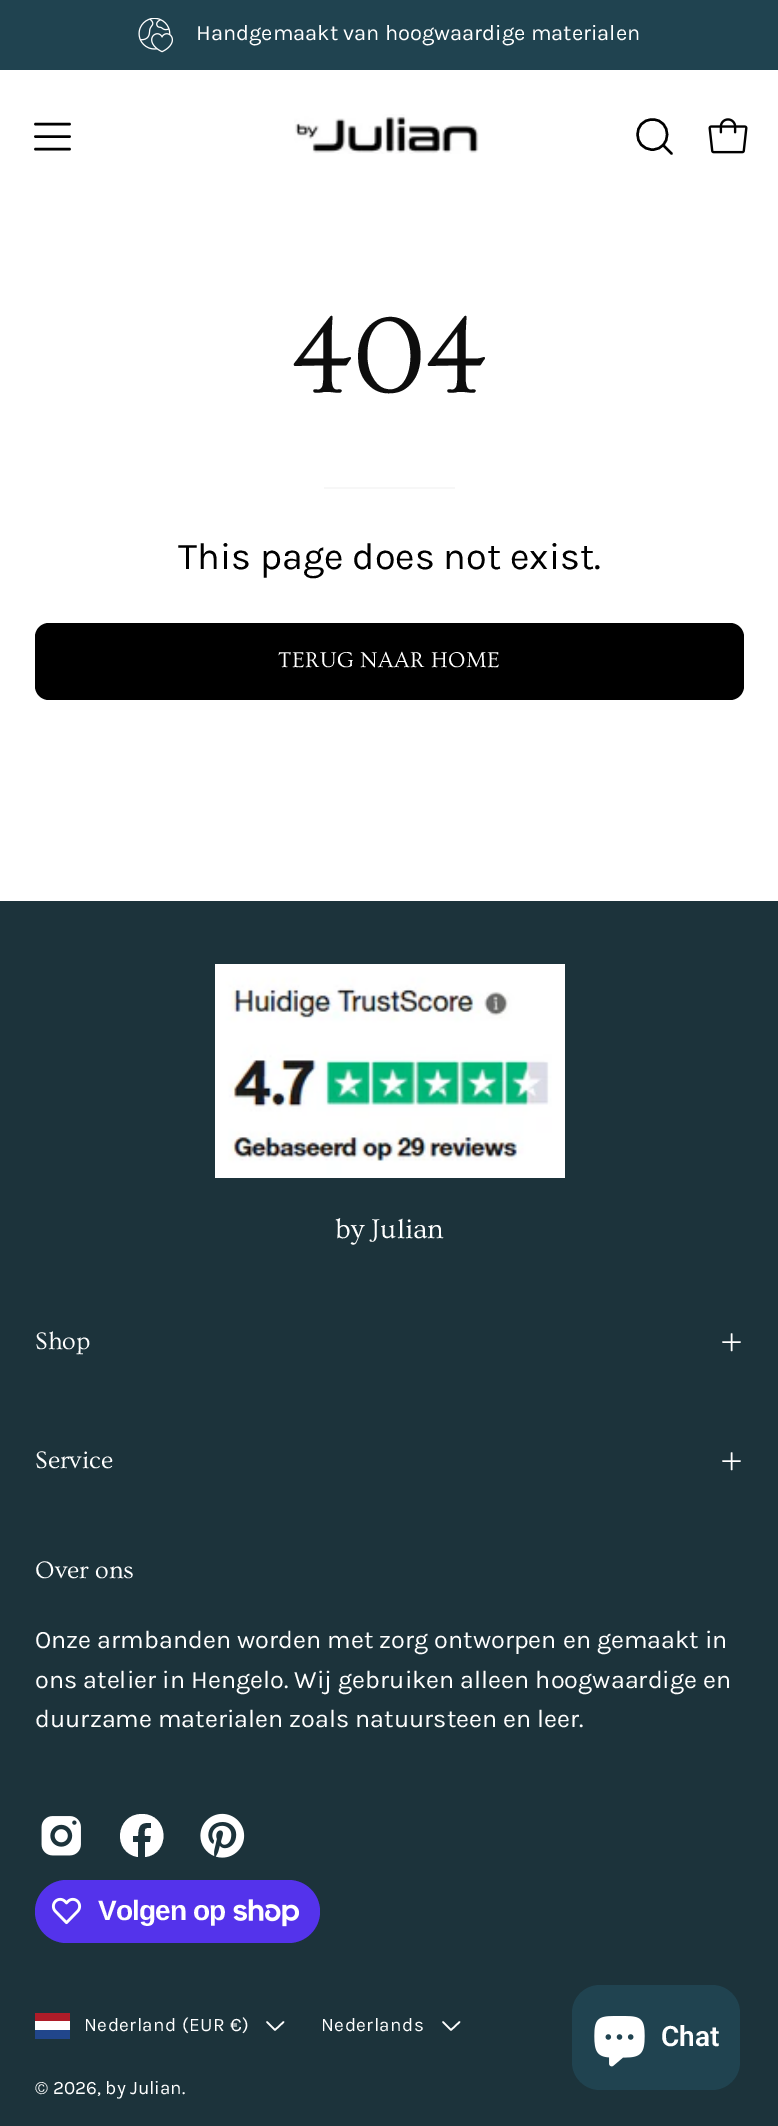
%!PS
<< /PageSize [778 2126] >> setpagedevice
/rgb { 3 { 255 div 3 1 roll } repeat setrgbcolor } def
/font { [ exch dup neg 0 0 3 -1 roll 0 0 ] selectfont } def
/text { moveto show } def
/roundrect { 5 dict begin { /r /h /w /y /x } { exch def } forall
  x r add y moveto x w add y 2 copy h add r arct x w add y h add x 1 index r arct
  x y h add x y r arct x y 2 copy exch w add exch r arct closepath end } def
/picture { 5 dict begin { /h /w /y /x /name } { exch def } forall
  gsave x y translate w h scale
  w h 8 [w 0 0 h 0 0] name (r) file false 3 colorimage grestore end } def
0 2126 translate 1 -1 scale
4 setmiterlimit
255 255 255 rgb
0 0 778 2126 rectfill
32 67 80 rgb
0 0 778 70 rectfill
(img_01.rgb) 138 18 35 35 picture
0 0 0 rgb
2.6 setlinewidth
1 setlinecap
1 setlinejoin
35.5 136.5 moveto 34 0 rlineto 35.5 124 moveto 34 0 rlineto 35.5 149 moveto 34 0 rlineto stroke
(img_02.rgb) 294 114 185 40 picture
2.4 setlinewidth
652.5 149.5 moveto 19.5 0 19.5 -30 0 -30 rcurveto -20 0 -20 30 0 30 rcurveto closepath 663 145 moveto 8.5 8.5 rlineto stroke
(img_03.rgb) 708 118 40 36 picture
247 247 247 rgb
324 487 131 2 rectfill
0 0 0 rgb
35 623 709 77 14 roundrect fill
28 51 59 rgb
0 901 778 1225 rectfill
(img_04.rgb) 215 964 350 214 picture
255 255 255 rgb
1.5 setlinewidth
723 1342 moveto 17 0 rlineto 731.5 1334 moveto 0 16.5 rlineto stroke
723 1461 moveto 17 0 rlineto 731.5 1453 moveto 0 16.5 rlineto stroke
(img_05.rgb) 41 1816 40 40 picture
142 1814 moveto -27 0 -30 39 -4 43 rcurveto 0 -15 rlineto -5 0 rlineto 0 -6 rlineto 5 0 rlineto 0 -11 3 -14 13 -13 rcurveto 0 5 rlineto -7 0 -6 1 -6 8 rcurveto 6 0 rlineto -1 6 rlineto -5 0 rlineto 0 15 rlineto 26 -3 24 -43 -3 -43 rcurveto closepath fill
(img_06.rgb) 200 1813 45 45 picture
84 51 235 rgb
35 1880 285 63 31.5 roundrect fill
(img_07.rgb) 51 1897 31 28 picture
(img_08.rgb) 233 1899 66 28 picture
255 255 255 rgb
35 2021 35 9 rectfill
33 70 139 rgb
35 2030 35 9 rectfill
174 28 40 rgb
35 2013 35 8 rectfill
255 255 255 rgb
1.6 setlinewidth
283.5 2022 moveto -8.5 8 rlineto -8 -8 rlineto stroke
459.5 2022 moveto -8.5 8 rlineto -8 -8 rlineto stroke
32 67 80 rgb
572 1985 168 105 28 roundrect fill
(img_09.rgb) 594 2016 51 51 picture
/Karla-Regular 21.95 font
255 255 255 rgb
(Handgemaakt van hoogwaardige materialen) 196 40 text
/Ovo-Regular 113 font
13 13 13 rgb
(404) 291 392 text
/Karla-Regular 37.75 font
0 0 0 rgb
(This page does not exist.) 178 569 text
/Ovo-Regular 22.5 font
255 255 255 rgb
278 667 moveto 0.5 0 (TERUG NAAR HOME) ashow
/Ovo-Regular 28.5 font
(by Julian) 335 1238 text
/Ovo-Regular 25.2 font
(Shop) 35 1349 text
(Service) 35 1468 text
(Over ons) 35 1578 text
/Karla-Regular 25.2 font
(Onze armbanden worden met zorg ontworpen en gemaakt in) 35 1648 text
(ons atelier in Hengelo. Wij gebruiken alleen hoogwaardige en) 35 1688 text
(duurzame materialen zoals natuursteen en leer.) 35 1727 text
/LiberationSans-Bold 28 font
98 1920 moveto -0.9 0 (Volgen op) ashow
/Karla-Regular 19 font
84 2031 moveto 0.4 0 (Nederland \(EUR €\)) ashow
321 2031 moveto 0.4 0 (Nederlands) ashow
(© 2026, by Julian.) 35 2094 text
/Roboto-SemiBold 28 font
(Chat) 661 2046 text
showpage
